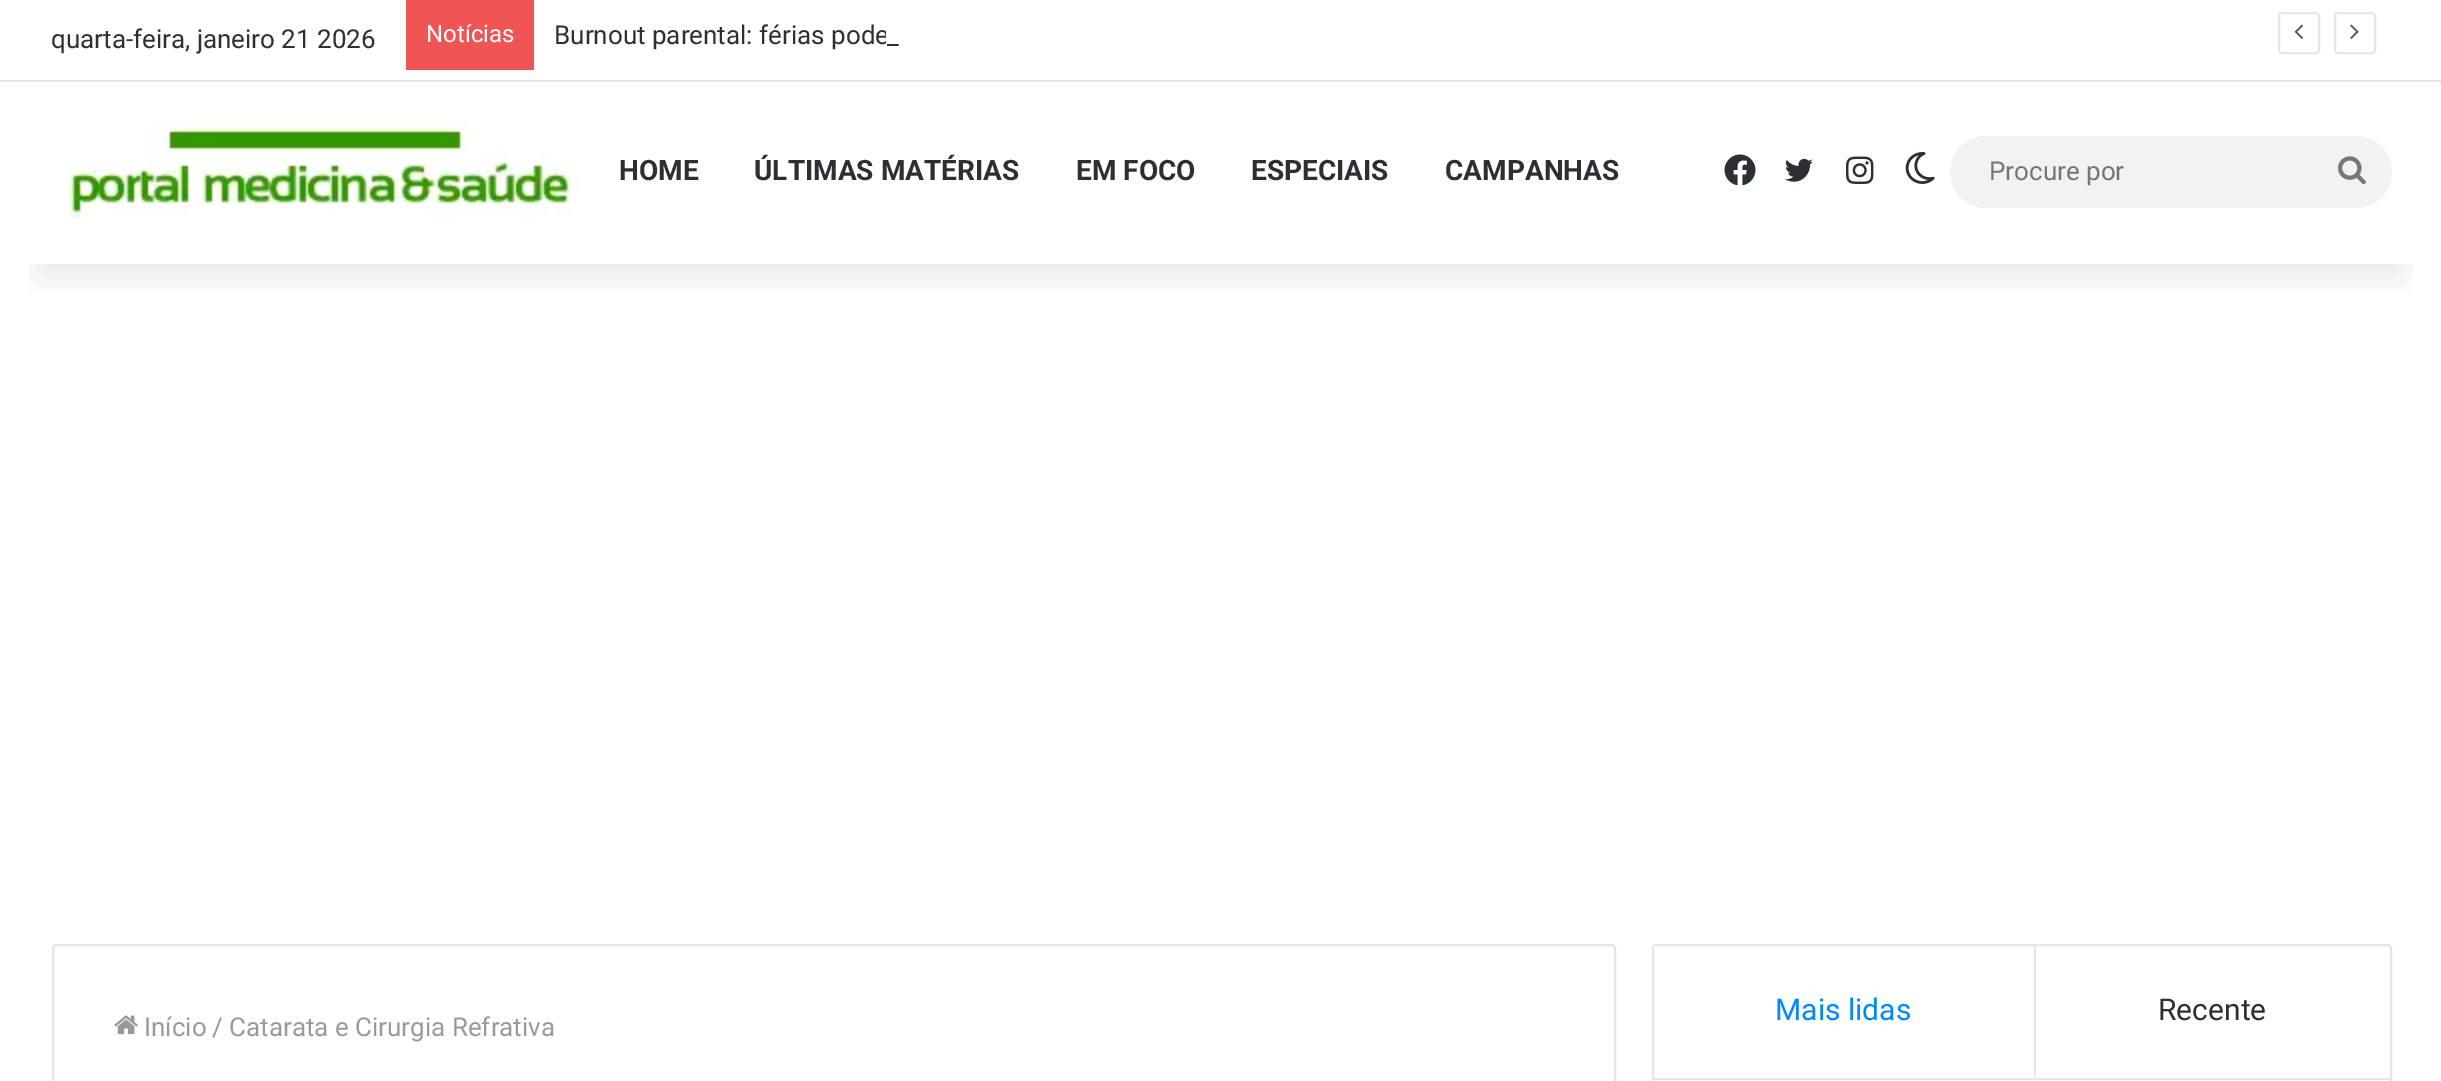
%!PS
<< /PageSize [2441 1081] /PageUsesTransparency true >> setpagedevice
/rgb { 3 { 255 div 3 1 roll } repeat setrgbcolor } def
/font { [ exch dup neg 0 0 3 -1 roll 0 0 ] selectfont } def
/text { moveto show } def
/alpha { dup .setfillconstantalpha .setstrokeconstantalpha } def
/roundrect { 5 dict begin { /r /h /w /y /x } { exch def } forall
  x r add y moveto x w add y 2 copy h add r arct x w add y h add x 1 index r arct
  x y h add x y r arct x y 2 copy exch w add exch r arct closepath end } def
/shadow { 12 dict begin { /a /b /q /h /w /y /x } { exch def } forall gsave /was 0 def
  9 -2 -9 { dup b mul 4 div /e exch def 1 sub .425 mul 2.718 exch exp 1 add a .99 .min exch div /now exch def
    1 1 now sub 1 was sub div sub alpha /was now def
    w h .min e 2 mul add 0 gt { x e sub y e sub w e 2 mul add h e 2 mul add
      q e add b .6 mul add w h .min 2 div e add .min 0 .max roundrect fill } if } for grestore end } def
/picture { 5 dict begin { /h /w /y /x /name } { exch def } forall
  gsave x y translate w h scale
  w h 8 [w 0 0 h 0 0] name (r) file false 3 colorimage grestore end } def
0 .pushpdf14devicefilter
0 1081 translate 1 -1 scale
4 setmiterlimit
255 255 255 rgb
0 0 2441 1081 rectfill
gsave
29 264 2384 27 rectclip
0 0 0 rgb
40 90 2362 184 0 20 0.1 shadow
grestore
230 230 230 rgb
0 80 2441 2 rectfill
240 85 85 rgb
406 0 128 70 rectfill
230 230 230 rgb
2 setlinewidth
2279 13 40 40 3 roundrect stroke
(img_01.rgb) 2294 24 10 15 picture
2335 13 40 40 3 roundrect stroke
(img_02.rgb) 2350 24 9 15 picture
(img_03.rgb) 67 122 513 98 picture
(img_04.rgb) 1724 154 32 32 picture
(img_05.rgb) 1785 158 28 24 picture
(img_06.rgb) 1846 156 28 28 picture
(img_07.rgb) 1905 152 30 32 picture
242 242 242 rgb
1950 136 442 72 36 roundrect fill
(img_08.rgb) 2338 156 28 29 picture
230 230 230 rgb
1653 945 738 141 3 roundrect stroke
1654 1078 736 2 rectfill
255 255 255 rgb
1654 946 2 2 rectfill
230 230 230 rgb
2036 946 moveto 0 132 rlineto -2 -2 rlineto 0 -130 rlineto closepath fill
56 945 moveto 1556 0 rlineto 1.5 0 3 1.5 3 3 rcurveto 0 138 rlineto -1562 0 rlineto 0 -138 rlineto 0 -1.5 1.5 -3 3 -3 rcurveto closepath stroke
(img_09.rgb) 114 1015 24 20 picture
/Roboto-Regular 26 font
44 47 52 rgb
(quarta-feira, janeiro 21 2026) 51 48 text
/Roboto-Regular 24 font
255 255 255 rgb
(Notícias) 426 42 text
/Roboto-Regular 26 font
44 47 52 rgb
(Burnout parental: férias pode) 554 44 text
255 255 255 rgb
886 31 3 13 rectfill
44 47 52 rgb
(_) 887 44 text
/Roboto-Bold 28 font
(HOME) 619 180 text
(ÚLTIMAS MATÉRIAS) 754 180 text
(EM FOCO) 1076 180 text
(ESPECIAIS) 1251 180 text
(CAMPANHAS) 1445 180 text
/Roboto-Regular 26 font
117 117 117 rgb
(Procure por) 1989 180 text
/Roboto-Regular 30 font
0 136 255 rgb
(Mais lidas) 1775 1020 text
44 47 52 rgb
(Recente) 2158 1020 text
/Roboto-Regular 26 font
153 153 153 rgb
(Início) 144 1036 text
(/) 212 1036 text
(Catarata e Cirurgia Refrativa) 229 1036 text
.poppdf14devicefilter showpage
